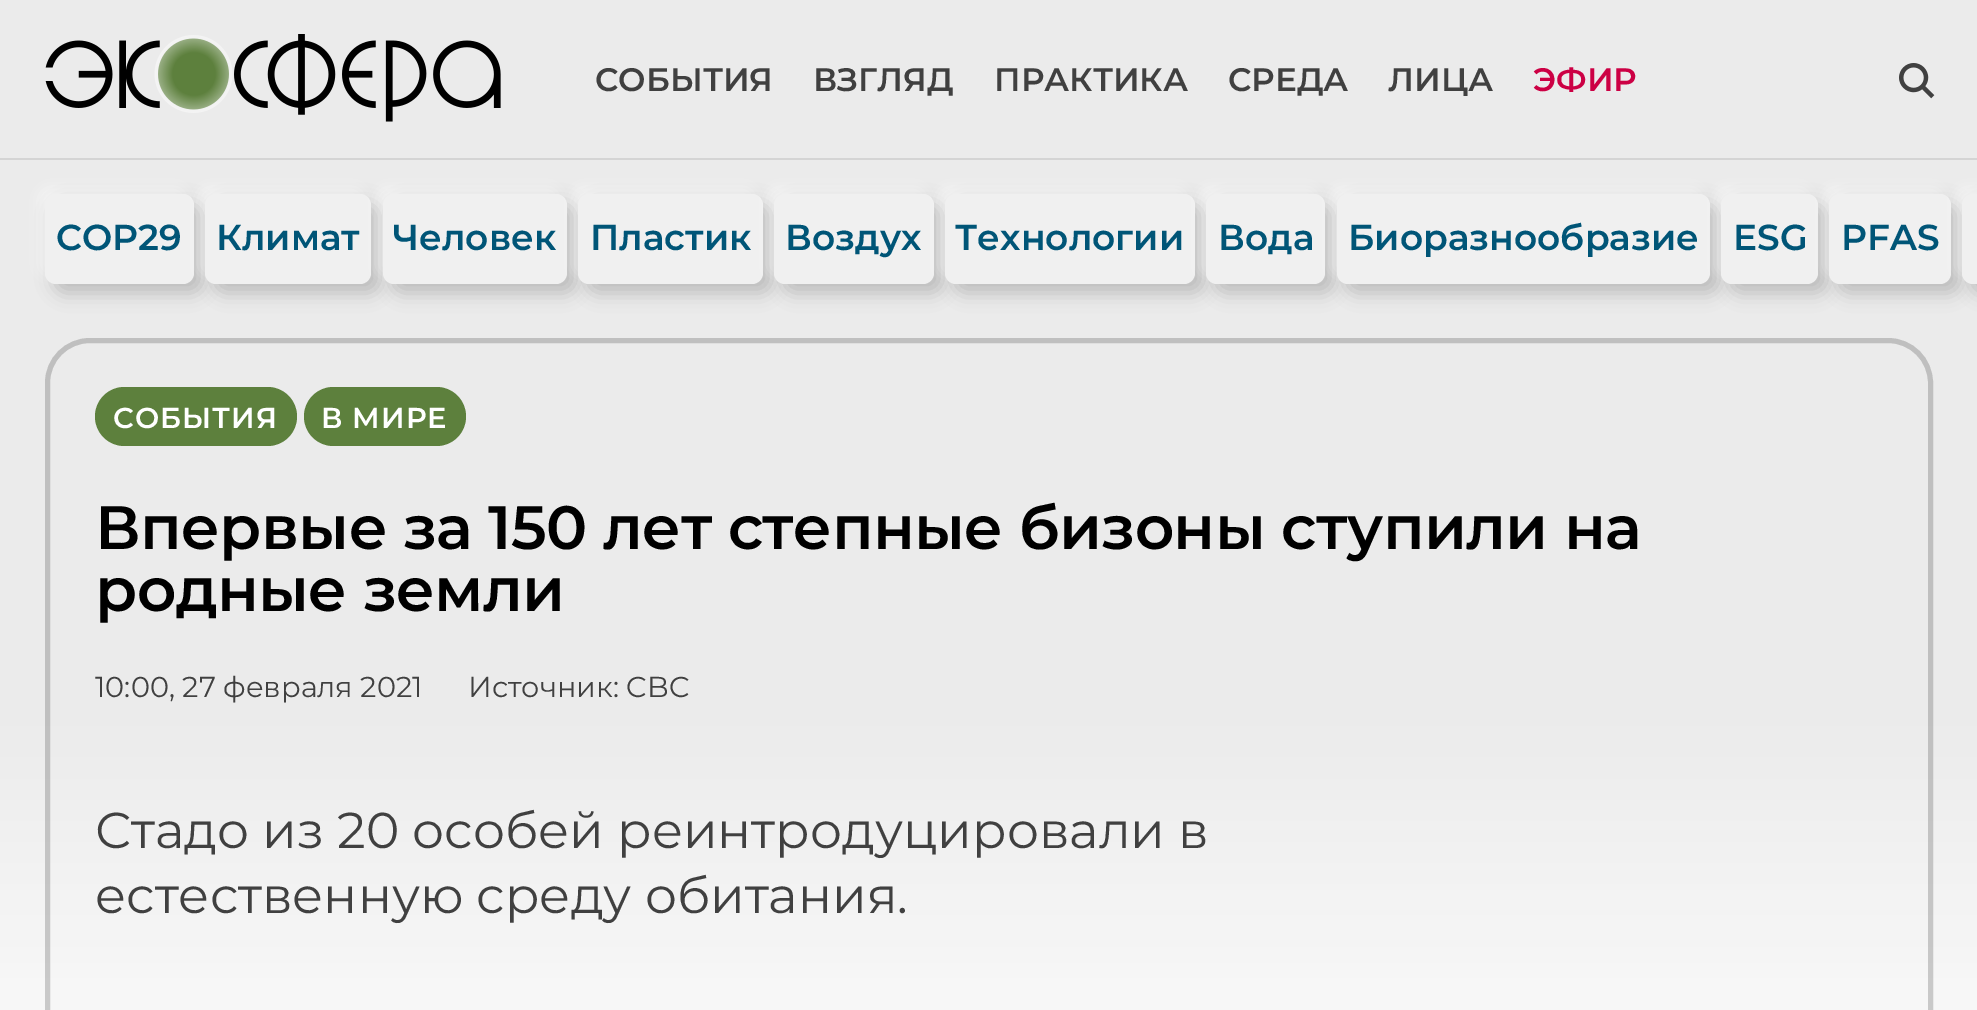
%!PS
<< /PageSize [1977 1010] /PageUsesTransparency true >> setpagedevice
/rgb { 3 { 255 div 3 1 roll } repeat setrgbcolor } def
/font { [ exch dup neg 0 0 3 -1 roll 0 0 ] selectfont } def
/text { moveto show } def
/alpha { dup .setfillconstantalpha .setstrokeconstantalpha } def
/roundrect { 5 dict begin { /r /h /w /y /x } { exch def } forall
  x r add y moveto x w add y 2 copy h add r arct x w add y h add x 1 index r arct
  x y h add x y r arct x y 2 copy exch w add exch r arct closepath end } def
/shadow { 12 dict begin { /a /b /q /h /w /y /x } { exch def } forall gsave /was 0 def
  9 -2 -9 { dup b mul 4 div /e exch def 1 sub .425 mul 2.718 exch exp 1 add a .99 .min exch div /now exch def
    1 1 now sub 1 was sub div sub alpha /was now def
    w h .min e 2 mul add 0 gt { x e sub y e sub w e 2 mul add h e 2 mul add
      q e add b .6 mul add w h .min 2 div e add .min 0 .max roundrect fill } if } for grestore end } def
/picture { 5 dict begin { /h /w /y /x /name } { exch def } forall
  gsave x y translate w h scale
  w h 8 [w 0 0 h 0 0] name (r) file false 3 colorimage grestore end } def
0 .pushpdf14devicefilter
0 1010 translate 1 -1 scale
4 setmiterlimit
255 255 255 rgb
0 0 1977 1010 rectfill
gsave 0 0 moveto 1977 0 rlineto 0 1010 rlineto -1977 0 rlineto closepath clip newpath
<< /ShadingType 2 /ColorSpace /DeviceRGB /Coords [989 0 989 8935] /Extend [true true] /Function << /FunctionType 3 /Domain [0 1] /Functions [<< /FunctionType 2 /Domain [0 1] /C0 [0.922 0.922 0.922] /C1 [0.922 0.922 0.922] /N 1 >> << /FunctionType 2 /Domain [0 1] /C0 [0.922 0.922 0.922] /C1 [0.969 0.969 0.969] /N 1 >> << /FunctionType 2 /Domain [0 1] /C0 [0.969 0.969 0.969] /C1 [0.969 0.969 0.969] /N 1 >>] /Bounds [0.08 0.11] /Encode [0 1 0 1 0 1] >> >> shfill grestore
(img_01.rgb) 45 34 456 88 picture
(img_02.rgb) 1899 63 36 36 picture
212 212 212 rgb
0 158 moveto 0 2 rlineto 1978 0 rlineto 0 166 rlineto 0 -168 rlineto closepath fill
255 255 255 rgb
38 187 149 90 11 7 0.5 shadow
0 0 0 rgb
54 203 149 90 11 9 0.2 shadow
240 240 240 rgb
45 194 149 90 11 roundrect fill
255 255 255 rgb
198 187 167 90 11 7 0.5 shadow
0 0 0 rgb
214 203 166 90 11 9 0.2 shadow
240 240 240 rgb
205 194 166 90 11 roundrect fill
255 255 255 rgb
376 187 184 90 11 7 0.5 shadow
0 0 0 rgb
392 203 184 90 11 9 0.2 shadow
240 240 240 rgb
383 194 184 90 11 roundrect fill
255 255 255 rgb
572 187 184 90 11 7 0.5 shadow
0 0 0 rgb
587 203 185 90 11 9 0.2 shadow
240 240 240 rgb
578 194 185 90 11 roundrect fill
255 255 255 rgb
767 187 160 90 11 7 0.5 shadow
0 0 0 rgb
783 203 160 90 11 9 0.2 shadow
240 240 240 rgb
774 194 160 90 11 roundrect fill
255 255 255 rgb
938 187 250 90 11 7 0.5 shadow
0 0 0 rgb
954 203 250 90 11 9 0.2 shadow
240 240 240 rgb
945 194 250 90 11 roundrect fill
255 255 255 rgb
1199 187 120 90 11 7 0.5 shadow
0 0 0 rgb
1215 203 119 90 11 9 0.2 shadow
240 240 240 rgb
1206 194 119 90 11 roundrect fill
255 255 255 rgb
1330 187 373 90 11 7 0.5 shadow
0 0 0 rgb
1346 203 373 90 11 9 0.2 shadow
240 240 240 rgb
1337 194 373 90 11 roundrect fill
255 255 255 rgb
1715 187 96 90 11 7 0.5 shadow
0 0 0 rgb
1730 203 97 90 11 9 0.2 shadow
240 240 240 rgb
1721 194 97 90 11 roundrect fill
255 255 255 rgb
1823 187 121 90 11 7 0.5 shadow
0 0 0 rgb
1838 203 122 90 11 9 0.2 shadow
240 240 240 rgb
1829 194 122 90 11 roundrect fill
255 255 255 rgb
1955 187 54 90 11 7 0.5 shadow
0 0 0 rgb
1971 203 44 90 11 9 0.2 shadow
240 240 240 rgb
1973 194 moveto 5 0 rlineto 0 90 rlineto -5 0 rlineto -6 0 -11 -5 -11 -11 rcurveto 0 -68 rlineto 0 -6 5 -11 11 -11 rcurveto closepath fill
0.19 alpha
0 0 0 rgb
5 setlinewidth
47.5 340.5 1883 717 42.5 roundrect stroke
1 alpha
93 128 61 rgb
95 387 202 59 29.5 roundrect fill
304 387 162 59 29.5 roundrect fill
/Montserrat-SemiBold 32.5 font
64 64 64 rgb
(СОБЫТИЯ) 595 91 text
(ВЗГЛЯД) 813 91 text
(ПРАКТИКА) 994 91 text
(СРЕДА) 1228 91 text
(ЛИЦА) 1388 91 text
204 0 68 rgb
(ЭФИР) 1533 91 text
/Montserrat-SemiBold 36 font
0 85 119 rgb
(COP29) 56 250 text
(Климат) 216 250 text
(Человек) 393 250 text
(Пластик) 590 250 text
(Воздух) 785 250 text
(Технологии) 955 250 text
(Вода) 1218 250 text
(Биоразнообразие) 1348 250 text
(ESG) 1733 250 text
(PFAS) 1841 250 text
/Montserrat-SemiBold 28.75 font
255 255 255 rgb
113 428 moveto 1 0 (СОБЫТИЯ) ashow
321 428 moveto 1 0 (В МИРЕ) ashow
/Montserrat-SemiBold 61.2 font
0 0 0 rgb
95 549 moveto -0.65 0 (Впервые за 150 лет степные бизоны ступили на) ashow
95 611 moveto -0.65 0 (родные земли) ashow
/Montserrat-Regular 28.75 font
64 64 64 rgb
(10:00, 27 февраля 2021) 95 697 text
(Источник: CBC) 468 697 text
/Montserrat-Regular 50.4 font
(Стадо из 20 особей реинтродуцировали в) 95 848 text
(естественную среду обитания.) 95 913 text
.poppdf14devicefilter showpage
